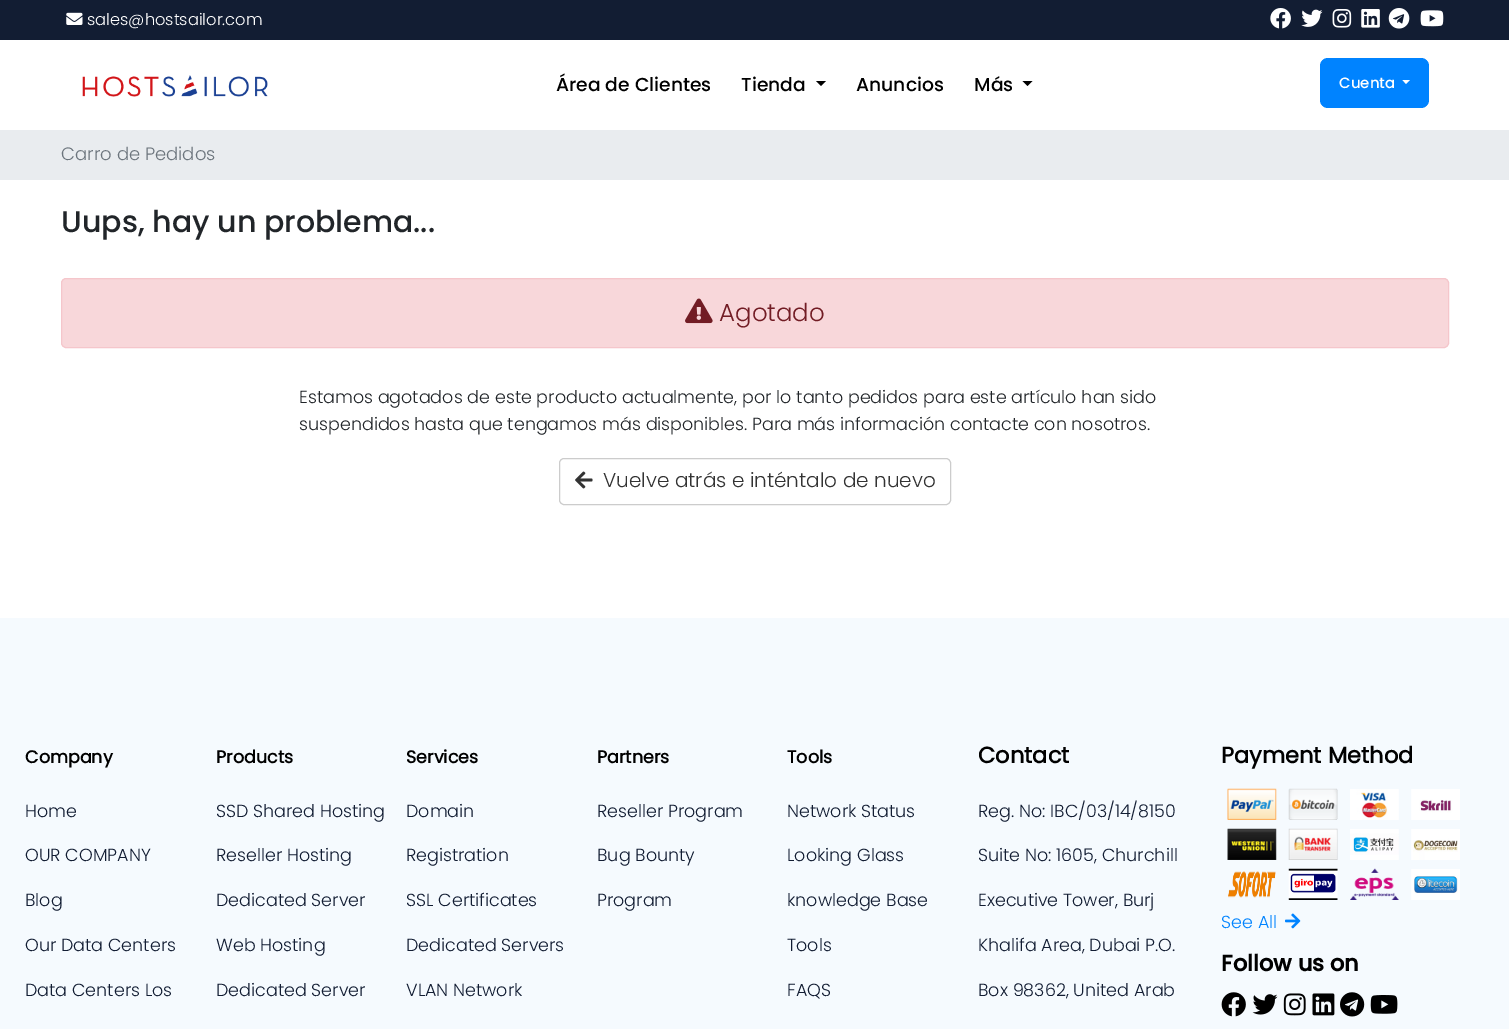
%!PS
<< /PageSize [1509 1029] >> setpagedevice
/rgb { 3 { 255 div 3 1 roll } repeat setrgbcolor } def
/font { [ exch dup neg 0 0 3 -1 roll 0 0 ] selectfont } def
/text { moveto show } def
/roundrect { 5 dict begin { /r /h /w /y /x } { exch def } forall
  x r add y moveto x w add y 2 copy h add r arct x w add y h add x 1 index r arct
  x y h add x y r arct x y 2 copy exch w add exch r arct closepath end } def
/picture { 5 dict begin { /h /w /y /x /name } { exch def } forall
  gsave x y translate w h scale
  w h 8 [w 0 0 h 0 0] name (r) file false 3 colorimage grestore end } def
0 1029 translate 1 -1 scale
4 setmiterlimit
255 255 255 rgb
0 0 1509 1029 rectfill
18 29 51 rgb
0 0 1509 40 rectfill
(img_01.rgb) 66 12 17 13 picture
(img_02.rgb) 1270 8 21 21 picture
(img_03.rgb) 1301 9 22 18 picture
(img_04.rgb) 1332 9 20 19 picture
(img_05.rgb) 1361 9 19 19 picture
(img_06.rgb) 1388 8 22 21 picture
(img_07.rgb) 1420 10 24 17 picture
(img_08.rgb) 82 75 186 22 picture
0 0 0 rgb
816 81 moveto 10 0 rlineto -5 5 rlineto closepath fill
1022.5 81 moveto 10 0 rlineto -5 5 rlineto closepath fill
0 131 255 rgb
1320 58 109 50 8 roundrect fill
255 255 255 rgb
1402.5 80 moveto 7.5 0 rlineto -4 4 rlineto closepath fill
233 236 239 rgb
0 130 1509 50 rectfill
248 215 218 rgb
61.5 278.5 1387 69 4.5 roundrect gsave fill grestore
245 198 203 rgb
stroke
(img_09.rgb) 685 298 28 26 picture
204 204 204 rgb
559.5 458.5 391 46 4.5 roundrect stroke
(img_10.rgb) 575 471 18 18 picture
245 250 254 rgb
0 618 1509 411 rectfill
(img_11.rgb) 1227 788 50 32 picture
(img_12.rgb) 1288 788 50 32 picture
(img_13.rgb) 1350 789 49 31 picture
(img_14.rgb) 1411 789 49 31 picture
(img_15.rgb) 1227 828 50 32 picture
(img_16.rgb) 1288 828 50 32 picture
(img_17.rgb) 1350 829 49 31 picture
(img_18.rgb) 1411 829 49 31 picture
(img_19.rgb) 1228 871 48 27 picture
(img_20.rgb) 1288 868 50 32 picture
(img_21.rgb) 1350 868 49 32 picture
(img_22.rgb) 1411 869 49 31 picture
(img_23.rgb) 1285 913 16 16 picture
(img_24.rgb) 1221 992 25 25 picture
(img_25.rgb) 1252 994 26 21 picture
(img_26.rgb) 1283 993 23 23 picture
(img_27.rgb) 1312 993 23 23 picture
(img_28.rgb) 1340 992 25 25 picture
(img_29.rgb) 1370 995 28 19 picture
/Poppins-Light 16.25 font
255 255 255 rgb
(sales@hostsailor.com) 87 25 text
/Poppins-Medium 18.75 font
0 0 0 rgb
(Área de Clientes) 556 91 text
(Tienda) 741 91 text
(Anuncios) 856 91 text
(Más) 974 91 text
/Poppins-Medium 15 font
255 255 255 rgb
(Cuenta) 1339 88 text
/Poppins-Light 18 font
108 117 125 rgb
(Carro de Pedidos) 61 160 text
/Poppins-Medium 30 font
33 37 41 rgb
(Uups, hay un problema...) 61 232 text
/Poppins-Light 24.5 font
114 28 36 rgb
(Agotado) 719 321 text
/Poppins-Light 17.5 font
33 37 41 rgb
(Estamos agotados de este producto actualmente, por lo tanto pedidos para este artículo han sido) 299 403 text
(suspendidos hasta que tengamos más disponibles. Para más información contacte con nosotros.) 299 430 text
/Poppins-Light 20 font
51 51 51 rgb
(Vuelve atrás e inténtalo de nuevo) 603 487 text
/Poppins-Bold 17.5 font
0 0 0 rgb
(Company) 25 763 text
/Poppins-Light 17.5 font
18 29 51 rgb
(Home) 25 817 text
(OUR COMPANY) 25 861 text
(Blog) 25 906 text
(Our Data Centers) 25 951 text
(Data Centers Los) 25 996 text
/Poppins-Bold 17.5 font
0 0 0 rgb
(Products) 216 763 text
/Poppins-Light 17.5 font
18 29 51 rgb
(SSD Shared Hosting) 216 817 text
(Reseller Hosting) 216 861 text
(Dedicated Server) 216 906 text
(Web Hosting) 216 951 text
(Dedicated Server) 216 996 text
/Poppins-Bold 17.5 font
0 0 0 rgb
(Services) 406 763 text
/Poppins-Light 17.5 font
18 29 51 rgb
(Domain) 406 817 text
(Registration) 406 861 text
(SSL Certificates) 406 906 text
(Dedicated Servers) 406 951 text
(VLAN Network) 406 996 text
/Poppins-Bold 17.5 font
0 0 0 rgb
(Partners) 597 763 text
/Poppins-Light 17.5 font
18 29 51 rgb
(Reseller Program) 597 817 text
(Bug Bounty) 597 861 text
(Program) 597 906 text
/Poppins-Bold 17.5 font
0 0 0 rgb
(Tools) 787 763 text
/Poppins-Light 17.5 font
18 29 51 rgb
(Network Status) 787 817 text
(Looking Glass) 787 861 text
(knowledge Base) 787 906 text
(Tools) 787 951 text
(FAQS) 787 996 text
/Poppins-Bold 22.5 font
0 0 0 rgb
(Contact) 978 763 text
/Poppins-Light 17.5 font
18 29 51 rgb
(Reg. No: IBC/03/14/8150) 978 817 text
(Suite No: 1605, Churchill) 978 861 text
(Executive Tower, Burj) 978 906 text
(Khalifa Area, Dubai P.O.) 978 951 text
(Box 98362, United Arab) 978 996 text
/Poppins-Bold 22.5 font
0 0 0 rgb
(Payment Method) 1221 763 text
/Poppins-Light 17.5 font
0 131 255 rgb
(See All) 1221 928 text
/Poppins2-Bold 22.5 font
0 0 0 rgb
(Follow us on) 1221 971 text
showpage
